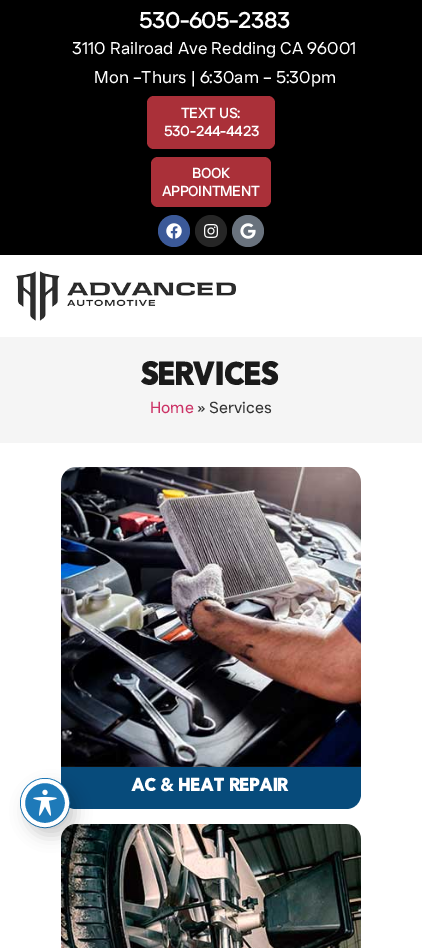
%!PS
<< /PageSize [422 948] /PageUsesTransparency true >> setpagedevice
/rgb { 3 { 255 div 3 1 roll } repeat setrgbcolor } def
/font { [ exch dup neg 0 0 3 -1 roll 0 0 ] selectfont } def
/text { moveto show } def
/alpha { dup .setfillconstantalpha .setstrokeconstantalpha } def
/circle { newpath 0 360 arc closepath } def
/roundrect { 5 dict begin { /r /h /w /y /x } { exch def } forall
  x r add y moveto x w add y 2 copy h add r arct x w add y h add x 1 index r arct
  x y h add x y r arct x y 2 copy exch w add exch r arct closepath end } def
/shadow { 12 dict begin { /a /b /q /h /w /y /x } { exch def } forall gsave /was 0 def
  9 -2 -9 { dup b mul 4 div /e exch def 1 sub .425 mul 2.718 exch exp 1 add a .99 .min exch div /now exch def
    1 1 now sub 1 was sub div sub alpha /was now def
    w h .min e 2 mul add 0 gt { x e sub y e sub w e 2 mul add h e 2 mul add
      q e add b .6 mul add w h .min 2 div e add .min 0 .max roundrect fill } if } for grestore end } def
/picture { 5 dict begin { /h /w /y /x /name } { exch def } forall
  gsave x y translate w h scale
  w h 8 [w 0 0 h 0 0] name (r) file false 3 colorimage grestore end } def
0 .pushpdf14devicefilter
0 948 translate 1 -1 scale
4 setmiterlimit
255 255 255 rgb
0 0 422 948 rectfill
0 0 0 rgb
0 0 422 255 rectfill
170 48 57 rgb
147 96 128 53 7 roundrect fill
151 157 120 50 7 roundrect fill
59 89 152 rgb
174 231 16 circle fill
(img_01.rgb) 166 223 16 16 picture
38 38 38 rgb
211 231 16 circle fill
(img_02.rgb) 204 224 14 14 picture
105 114 125 rgb
248 231 16 circle fill
(img_03.rgb) 240 223 16 16 picture
(img_04.rgb) 16 271 220 50 picture
245 245 245 rgb
0 337 422 106 rectfill
(img_05.rgb) 61 467 300 300 picture
7 75 123 rgb
61 767 moveto 300 0 rlineto 0 27 rlineto 0 8.5 -6.5 15 -15 15 rcurveto -270 0 rlineto -8.5 0 -15 -6.5 -15 -15 rcurveto closepath fill
(img_06.rgb) 61 824 300 124 picture
30 122 185 rgb
45 803 24.5 circle stroke
0 0 0 rgb
27 787 48 48 24 8 0.2 shadow
30 122 185 rgb
45 803 22 circle gsave fill grestore
255 255 255 rgb
4 setlinewidth
stroke
(img_07.rgb) 33 789 24 27 picture
/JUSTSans-Bold 22 font
(530-605-2383) 139 28 text
/JUSTSans-Regular 17 font
(3110 Railroad Ave Redding CA 96001) 72 54 text
(Mon –Thurs | 6:30am – 5:30pm) 94 83 text
/JUSTSans-Bold 14 font
(TEXT US:) 181 118 text
(530-244-4423) 164 136 text
(BOOK) 192 178 text
(APPOINTMENT) 162 196 text
/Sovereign-Regular 32 font
26 26 26 rgb
(Services) 142 385 text
/JUSTSans-Regular 16 font
204 51 102 rgb
(Home) 150 413 text
51 51 51 rgb
(» Services) 197 413 text
/Sovereign-Regular 18 font
255 255 255 rgb
(AC & Heat Repair) 132 791 text
.poppdf14devicefilter showpage
